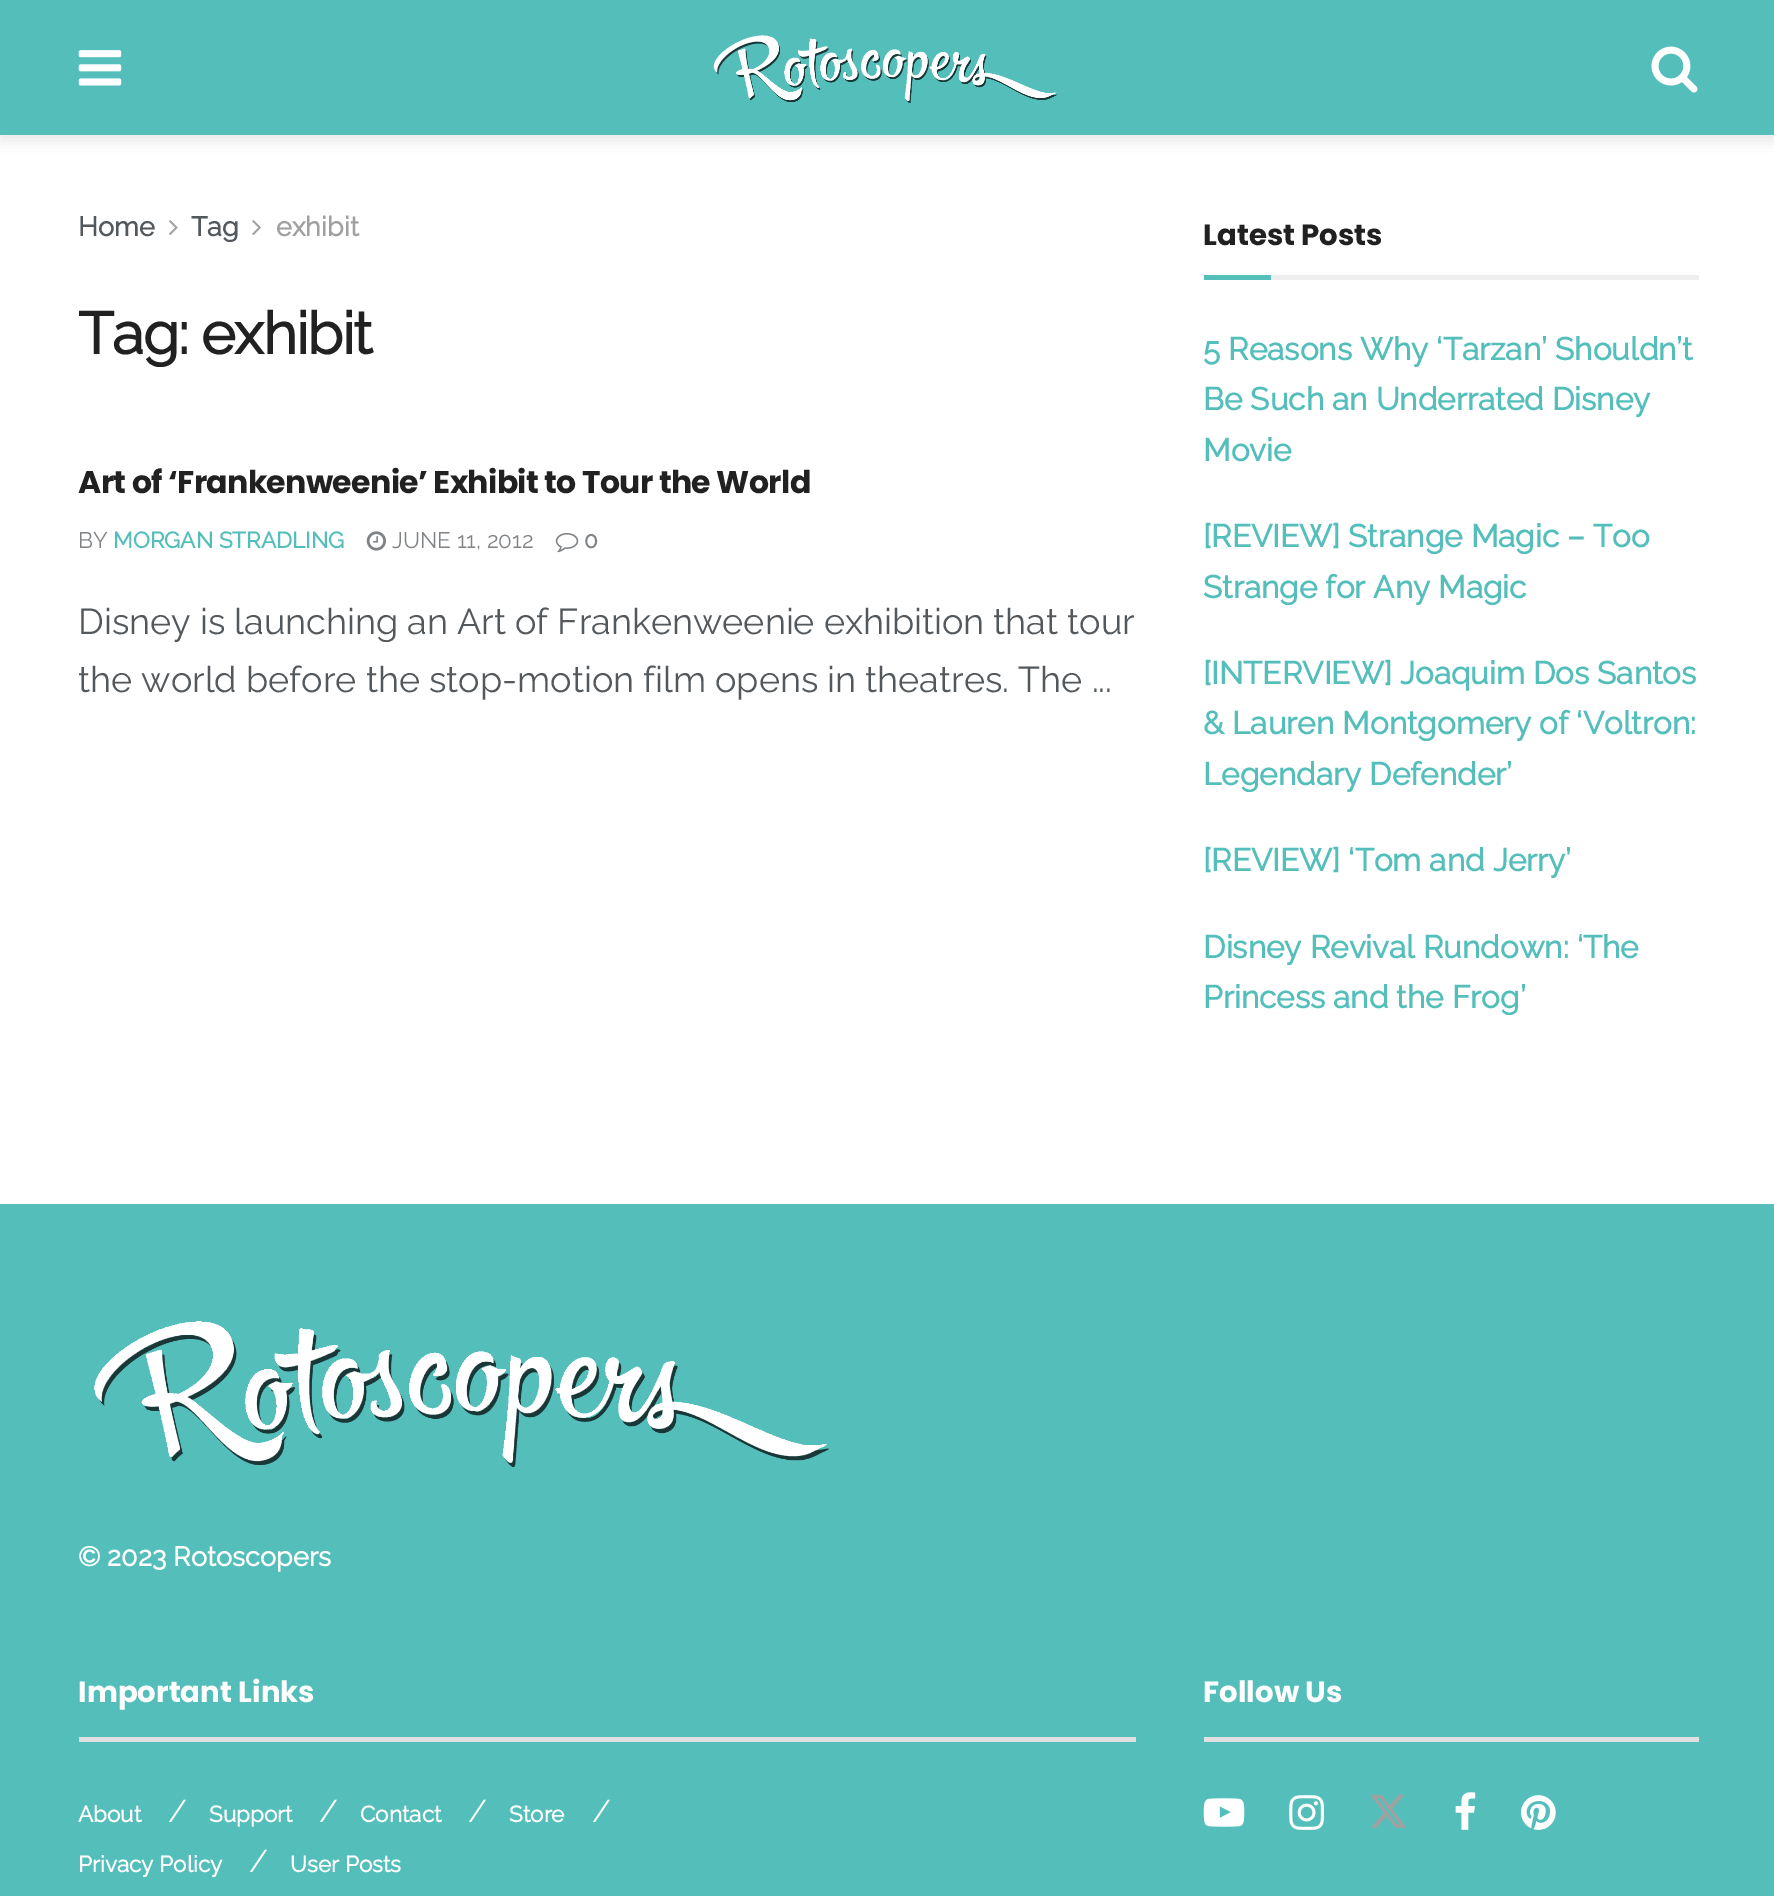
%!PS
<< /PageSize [1774 1896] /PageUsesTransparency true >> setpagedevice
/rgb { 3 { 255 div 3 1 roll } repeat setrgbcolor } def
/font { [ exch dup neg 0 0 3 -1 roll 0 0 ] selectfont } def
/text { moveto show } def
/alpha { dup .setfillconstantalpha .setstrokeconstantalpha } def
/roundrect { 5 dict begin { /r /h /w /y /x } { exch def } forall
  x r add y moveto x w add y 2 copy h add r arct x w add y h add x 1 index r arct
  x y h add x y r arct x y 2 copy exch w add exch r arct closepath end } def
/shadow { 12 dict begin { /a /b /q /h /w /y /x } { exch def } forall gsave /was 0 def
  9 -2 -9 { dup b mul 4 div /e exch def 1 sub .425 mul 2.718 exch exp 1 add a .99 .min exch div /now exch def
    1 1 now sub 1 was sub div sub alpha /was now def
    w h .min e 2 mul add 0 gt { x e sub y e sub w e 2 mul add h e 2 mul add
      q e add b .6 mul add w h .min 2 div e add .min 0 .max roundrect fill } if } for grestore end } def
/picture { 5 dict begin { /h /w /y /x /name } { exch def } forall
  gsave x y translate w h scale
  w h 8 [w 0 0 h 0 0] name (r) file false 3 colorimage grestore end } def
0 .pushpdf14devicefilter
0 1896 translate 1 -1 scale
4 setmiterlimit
255 255 255 rgb
0 0 1774 1896 rectfill
0 0 0 rgb
0 5 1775 135 0 7 0.1 shadow
84 190 187 rgb
0 0 1774 135 rectfill
(img_01.rgb) 78 50 44 36 picture
(img_02.rgb) 713 35 345 68 picture
(img_03.rgb) 1651 46 47 47 picture
(img_04.rgb) 169 220 9 15 picture
(img_05.rgb) 252 220 9 15 picture
(img_06.rgb) 366 531 20 20 picture
(img_07.rgb) 555 533 24 20 picture
238 238 238 rgb
1271 275 428 5 rectfill
84 190 187 rgb
1204 275 67 5 rectfill
0 1204 1774 692 rectfill
(img_08.rgb) 94 1321 735 147 picture
224 224 224 rgb
79 1737 1057 5 rectfill
1204 1737 495 5 rectfill
(img_09.rgb) 1203 1798 42 29 picture
(img_10.rgb) 1289 1795 35 35 picture
(img_11.rgb) 1370 1794 37 34 picture
(img_12.rgb) 1455 1792 21 38 picture
(img_13.rgb) 1521 1795 35 35 picture
/Raleway-Bold 27 font
83 88 92 rgb
(Home) 78 236 text
(Tag) 191 236 text
160 160 160 rgb
(exhibit) 276 236 text
/Raleway-Bold 58.5 font
33 33 33 rgb
78 354 moveto -1.25 0 (Tag: exhibit) ashow
/Poppins-Bold 31.5 font
78 493 moveto -0.65 0 (Art of ‘Frankenweenie’ Exhibit to Tour the World) ashow
/Raleway-Thin 22.5 font
128 131 134 rgb
(BY) 78 548 text
/Raleway-Bold 22.5 font
84 190 187 rgb
(MORGAN STRADLING) 113 548 text
/Raleway-Thin 22.5 font
128 131 134 rgb
(JUNE 11, 2012) 392 548 text
/Raleway-Bold 22.5 font
(0) 584 548 text
/Raleway-Thin 36 font
83 88 92 rgb
(Disney is launching an Art of Frankenweenie exhibition that tour) 78 634 text
gsave
79 461 1057 248 rectclip
(the world before the stop-motion film opens in theatres. The ...) 78 692 text
grestore
/Poppins-Bold 29.25 font
33 33 33 rgb
(Latest Posts) 1203 245 text
/Raleway-Bold 31.5 font
84 190 187 rgb
(5 Reasons Why ‘Tarzan’ Shouldn’t) 1203 360 text
(Be Such an Underrated Disney) 1203 410 text
(Movie) 1203 461 text
([REVIEW] Strange Magic – Too) 1203 547 text
(Strange for Any Magic) 1203 598 text
([INTERVIEW] Joaquim Dos Santos) 1203 684 text
(& Lauren Montgomery of ‘Voltron:) 1203 734 text
(Legendary Defender’) 1203 785 text
([REVIEW] ‘Tom and Jerry’) 1203 871 text
(Disney Revival Rundown: ‘The) 1203 958 text
(Princess and the Frog’) 1203 1008 text
/Raleway-Bold 27 font
255 255 255 rgb
(© 2023 Rotoscopers) 78 1566 text
/Poppins-Bold 29.25 font
(Important Links) 78 1702 text
/Raleway-Bold 22.5 font
(About) 78 1822 text
/Raleway-Thin 31.5 font
(/) 168 1822 text
/Raleway-Bold 22.5 font
(Support) 209 1822 text
/Raleway-Thin 31.5 font
(/) 319 1822 text
/Raleway-Bold 22.5 font
(Contact) 360 1822 text
/Raleway-Thin 31.5 font
(/) 468 1822 text
/Raleway-Bold 22.5 font
(Store) 509 1822 text
/Raleway-Thin 31.5 font
(/) 592 1822 text
/Raleway-Bold 22.5 font
(Privacy Policy) 78 1872 text
/Raleway-Thin 31.5 font
(/) 249 1872 text
/Raleway-Bold 22.5 font
(User Posts) 290 1872 text
/Poppins-Bold 29.25 font
(Follow Us) 1203 1702 text
.poppdf14devicefilter showpage
